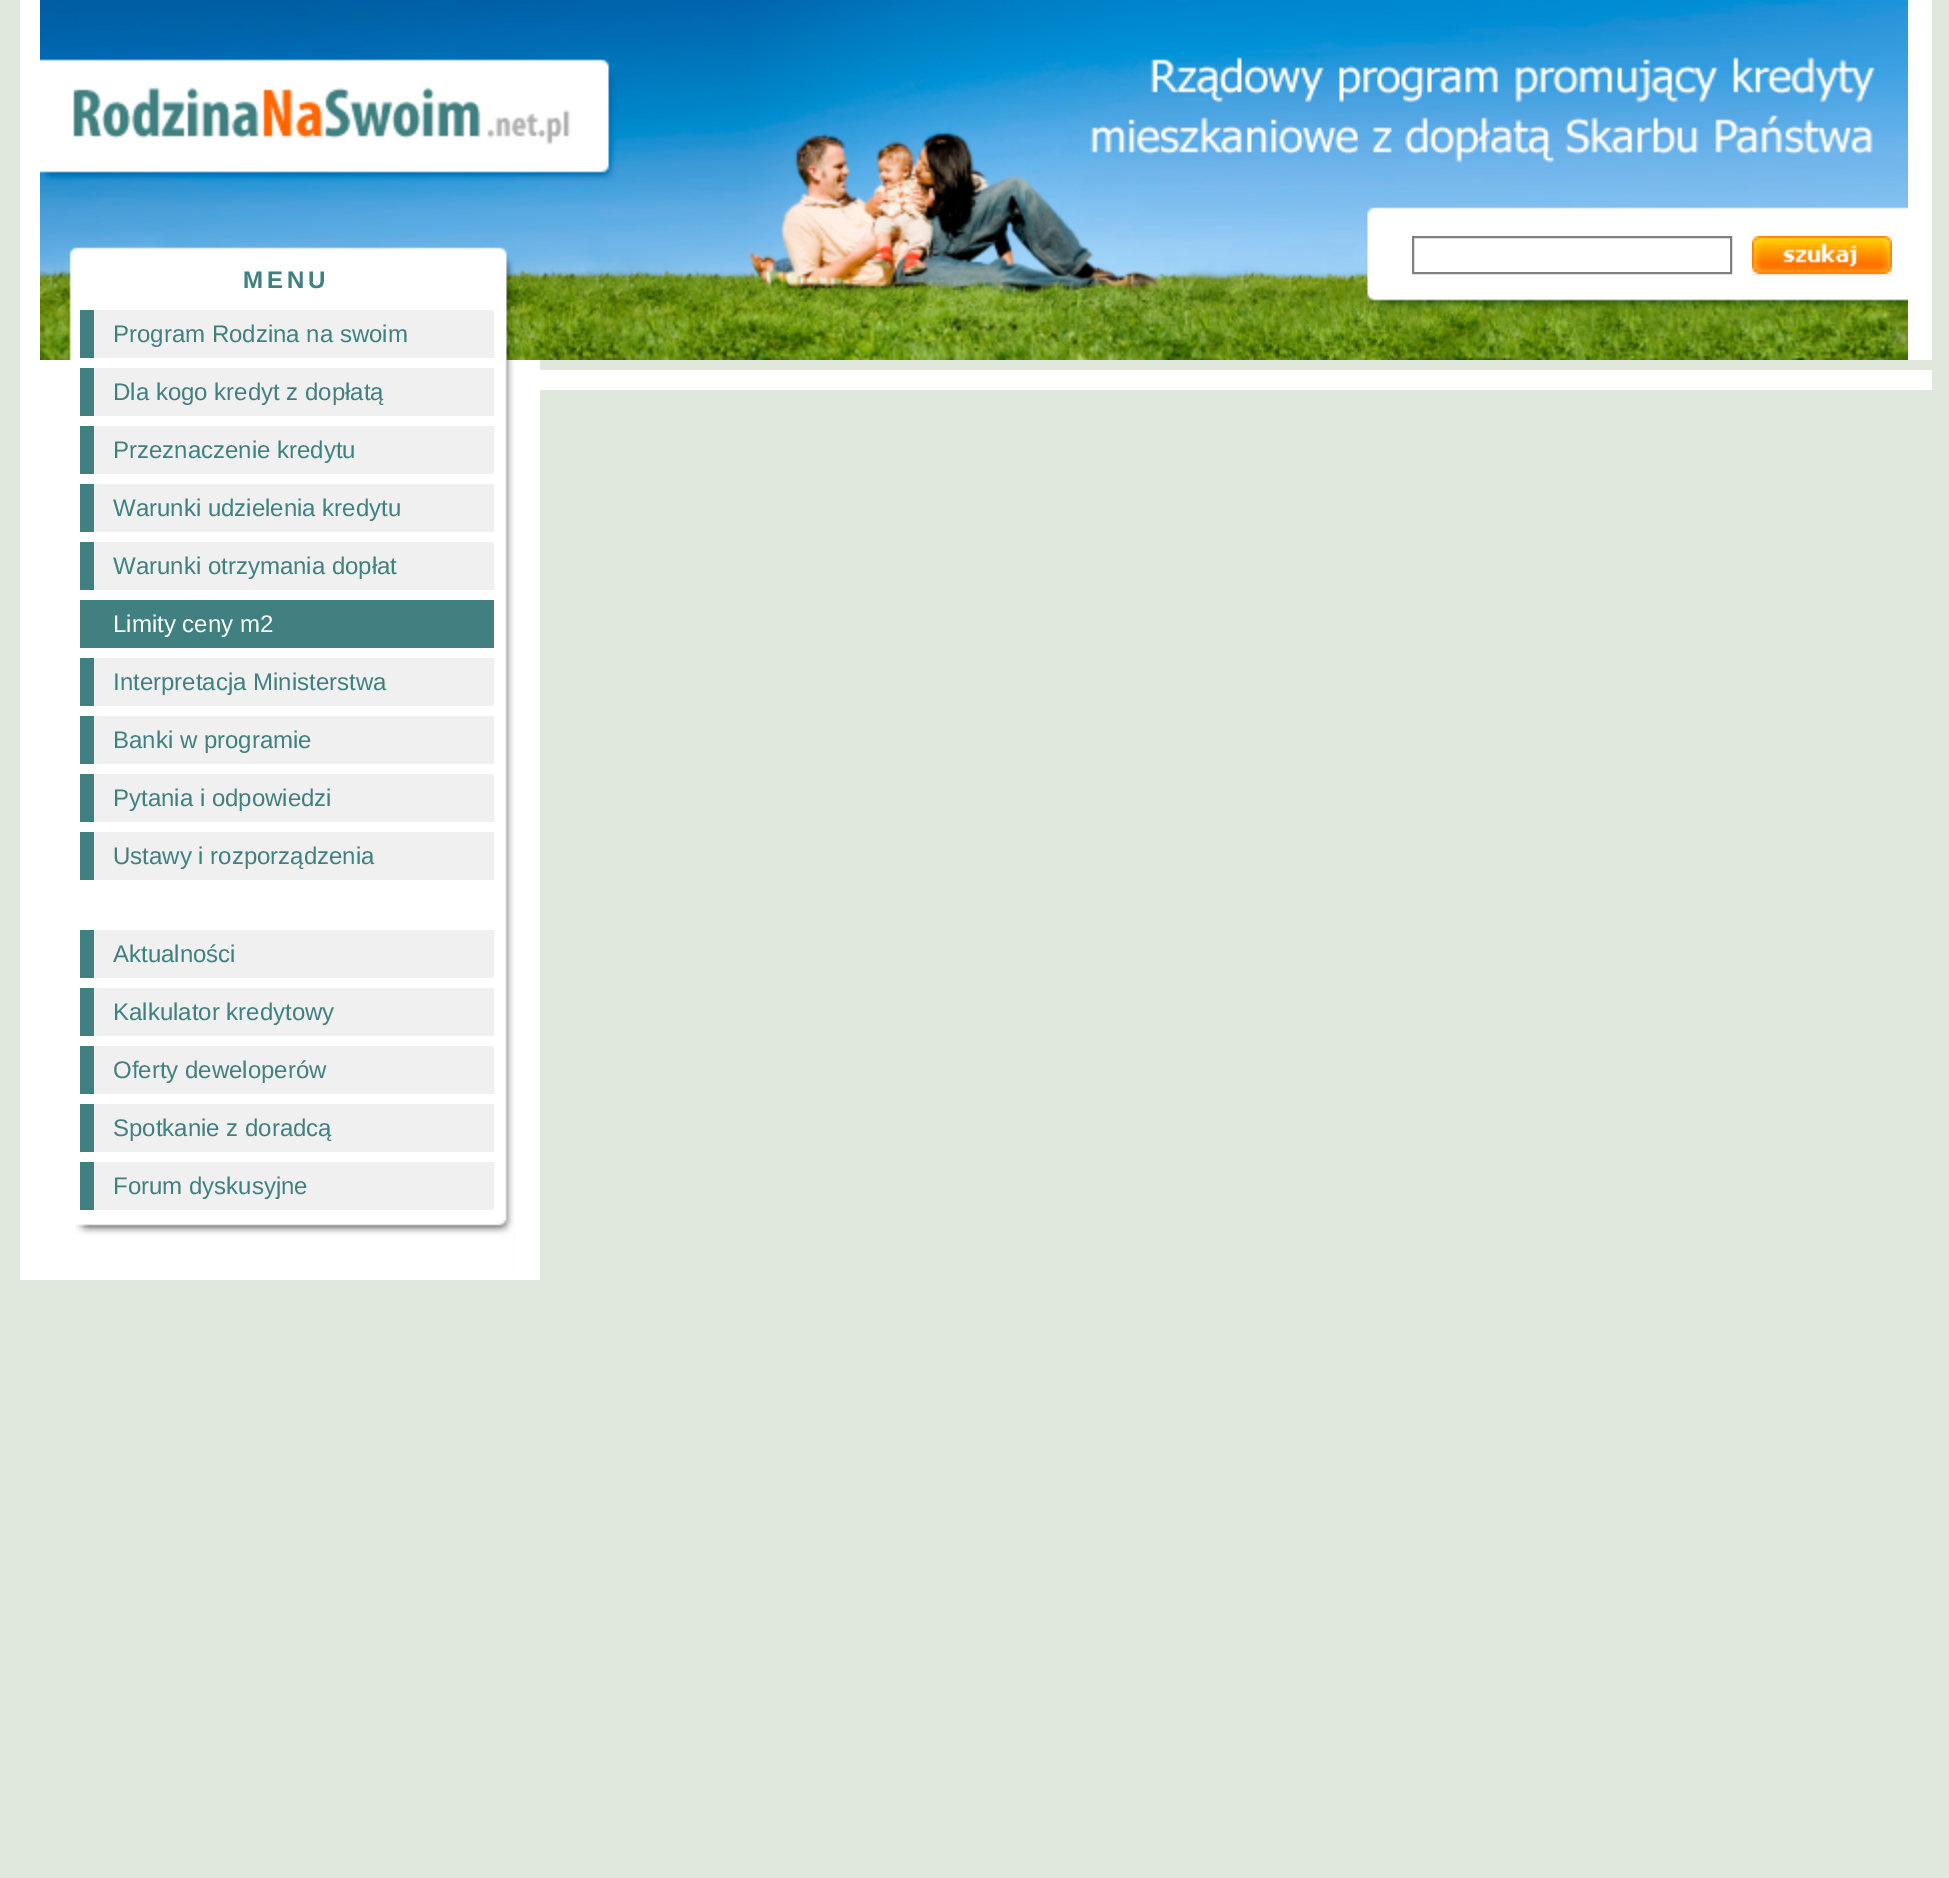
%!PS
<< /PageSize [1949 1878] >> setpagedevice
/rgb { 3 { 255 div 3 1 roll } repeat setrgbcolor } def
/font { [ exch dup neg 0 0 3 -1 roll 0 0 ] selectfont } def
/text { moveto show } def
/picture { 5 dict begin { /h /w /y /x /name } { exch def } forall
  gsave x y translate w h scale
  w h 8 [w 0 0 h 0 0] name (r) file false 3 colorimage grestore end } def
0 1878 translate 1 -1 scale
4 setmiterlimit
224 231 220 rgb
0 0 1949 1878 rectfill
255 255 255 rgb
20 0 1912 360 rectfill
(img_04.rgb) 20 260 520 1020 picture
(img_01.rgb) 40 0 1868 360 picture
(img_02.rgb) 73 87 498 57 picture
128 128 128 rgb
2 setlinewidth
1413 237 318 36 rectstroke
239 239 239 rgb
1752 274 140 2 rectfill
(img_03.rgb) 1752 236 140 38 picture
240 240 240 rgb
94 310 400 48 rectfill
64 128 128 rgb
80 310 14 48 rectfill
240 240 240 rgb
94 368 400 48 rectfill
64 128 128 rgb
80 368 14 48 rectfill
240 240 240 rgb
94 426 400 48 rectfill
64 128 128 rgb
80 426 14 48 rectfill
240 240 240 rgb
94 484 400 48 rectfill
64 128 128 rgb
80 484 14 48 rectfill
240 240 240 rgb
94 542 400 48 rectfill
64 128 128 rgb
80 542 14 48 rectfill
80 600 414 48 rectfill
240 240 240 rgb
94 658 400 48 rectfill
64 128 128 rgb
80 658 14 48 rectfill
240 240 240 rgb
94 716 400 48 rectfill
64 128 128 rgb
80 716 14 48 rectfill
240 240 240 rgb
94 774 400 48 rectfill
64 128 128 rgb
80 774 14 48 rectfill
240 240 240 rgb
94 832 400 48 rectfill
64 128 128 rgb
80 832 14 48 rectfill
240 240 240 rgb
94 930 400 48 rectfill
64 128 128 rgb
80 930 14 48 rectfill
240 240 240 rgb
94 988 400 48 rectfill
64 128 128 rgb
80 988 14 48 rectfill
240 240 240 rgb
94 1046 400 48 rectfill
64 128 128 rgb
80 1046 14 48 rectfill
240 240 240 rgb
94 1104 400 48 rectfill
64 128 128 rgb
80 1104 14 48 rectfill
240 240 240 rgb
94 1162 400 48 rectfill
64 128 128 rgb
80 1162 14 48 rectfill
(img_05.rgb) 75 1220 439 30 picture
255 255 255 rgb
505 1250 9 30 rectfill
540 370 1392 20 rectfill
/LiberationSans-Bold 24 font
64 128 128 rgb
243 288 moveto 4 0 (MENU) ashow
/LiberationSans-Regular 24 font
(Program Rodzina na swoim) 113 342 text
(Dla kogo kredyt z dopłatą) 113 400 text
(Przeznaczenie kredytu) 113 458 text
(Warunki udzielenia kredytu) 113 516 text
(Warunki otrzymania dopłat) 113 574 text
255 255 255 rgb
(Limity ceny m2) 113 632 text
64 128 128 rgb
(Interpretacja Ministerstwa) 113 690 text
(Banki w programie) 113 748 text
(Pytania i odpowiedzi) 113 806 text
(Ustawy i rozporządzenia) 113 864 text
(Aktualności) 113 962 text
(Kalkulator kredytowy) 113 1020 text
(Oferty deweloperów) 113 1078 text
(Spotkanie z doradcą) 113 1136 text
(Forum dyskusyjne) 113 1194 text
showpage
